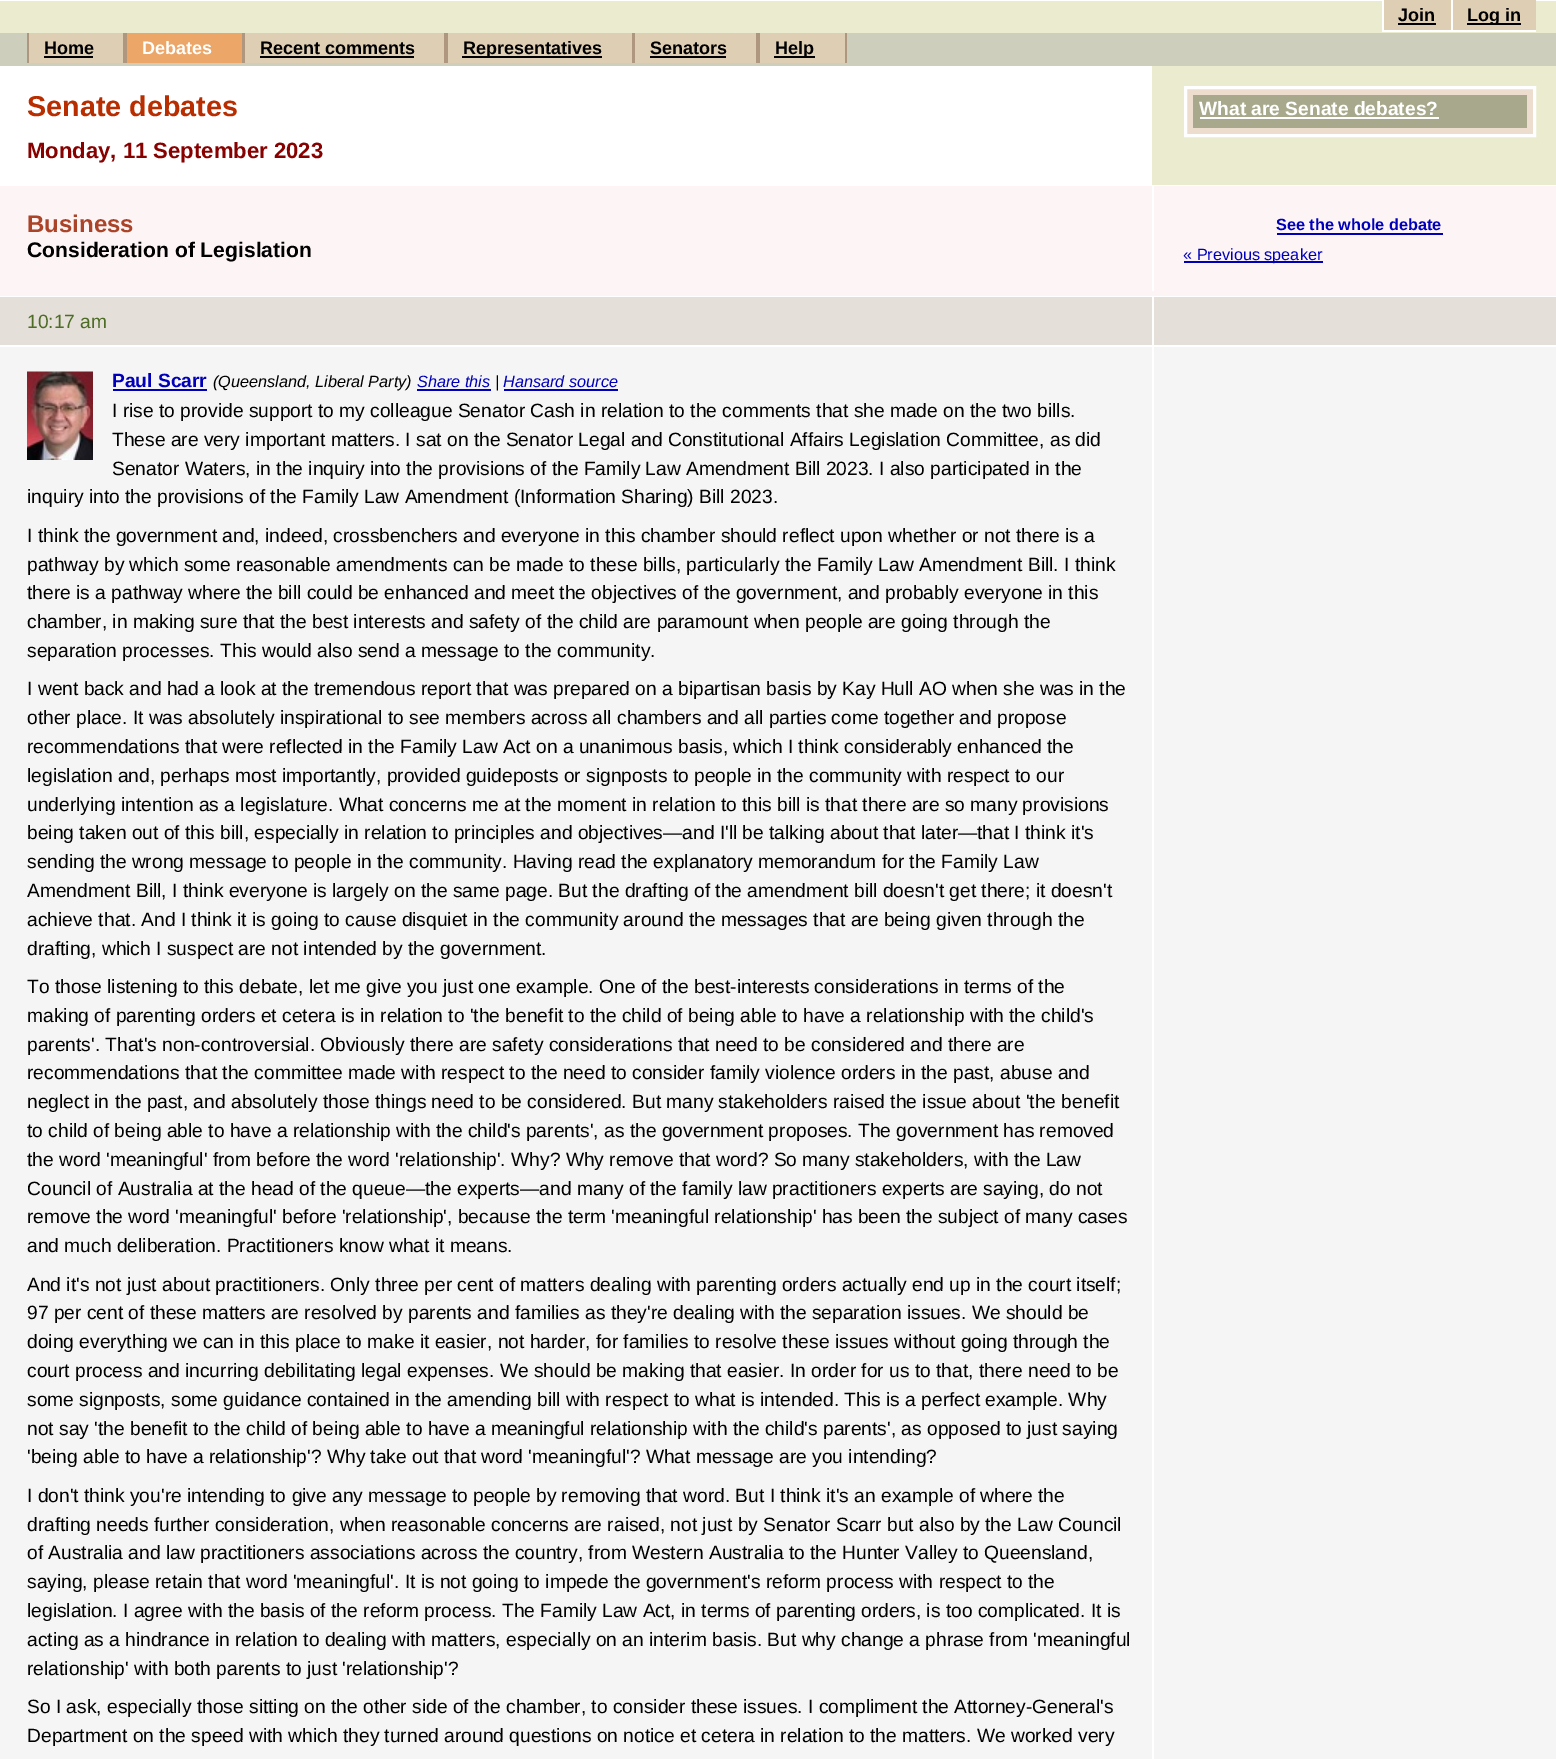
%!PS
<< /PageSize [1556 1759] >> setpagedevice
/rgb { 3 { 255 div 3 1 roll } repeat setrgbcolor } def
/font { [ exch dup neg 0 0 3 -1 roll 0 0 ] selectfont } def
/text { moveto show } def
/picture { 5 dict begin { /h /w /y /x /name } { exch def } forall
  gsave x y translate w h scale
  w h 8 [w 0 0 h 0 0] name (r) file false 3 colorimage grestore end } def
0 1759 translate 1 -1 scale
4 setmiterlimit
235 236 207 rgb
0 0 1556 1759 rectfill
255 255 255 rgb
0 0 1556 1 rectfill
222 206 179 rgb
1384 0 67 30 rectfill
255 255 255 rgb
1382 30 154 2 rectfill
1382 0 2 32 rectfill
0 0 0 rgb
1398 23 38 2 rectfill
222 206 179 rgb
1453 0 83 30 rectfill
255 255 255 rgb
1451 0 2 32 rectfill
0 0 0 rgb
1467 23 54 2 rectfill
205 206 188 rgb
0 33 1556 33 rectfill
222 206 179 rgb
29 33 94 30 rectfill
174 150 127 rgb
123 33 4 30 rectfill
27 33 2 30 rectfill
0 0 0 rgb
44 56 49 2 rectfill
235 166 104 rgb
127 33 115 30 rectfill
174 150 127 rgb
242 33 3 30 rectfill
222 206 179 rgb
245 33 199 30 rectfill
174 150 127 rgb
444 33 4 30 rectfill
0 0 0 rgb
260 56 154 2 rectfill
222 206 179 rgb
448 33 184 30 rectfill
174 150 127 rgb
632 33 3 30 rectfill
0 0 0 rgb
462 56 140 2 rectfill
222 206 179 rgb
635 33 121 30 rectfill
174 150 127 rgb
756 33 4 30 rectfill
0 0 0 rgb
650 56 76 2 rectfill
222 206 179 rgb
760 33 85 30 rectfill
174 150 127 rgb
845 33 2 30 rectfill
0 0 0 rgb
774 56 41 2 rectfill
255 255 255 rgb
0 66 1152 119 rectfill
236 221 207 rgb
1185.5 87.5 moveto 349 0 rlineto 0 48 rlineto -349 0 rlineto closepath gsave fill grestore
255 255 255 rgb
3 setlinewidth
stroke
168 169 140 rgb
1193 95 334 33 rectfill
255 255 255 rgb
1200 117 239 2 rectfill
0 185 1556 1 rectfill
253 245 245 rgb
0 186 1556 110 rectfill
255 255 255 rgb
1152 186 2 105 rectfill
0 0 187 rgb
1277 233 166 2 rectfill
1184 261 139 2 rectfill
255 255 255 rgb
0 296 1556 1 rectfill
229 223 217 rgb
0 297 1556 48 rectfill
255 255 255 rgb
1152 297 2 48 rectfill
0 345 1556 2 rectfill
245 245 245 rgb
0 347 1556 1412 rectfill
255 255 255 rgb
1152 347 2 1412 rectfill
(img_01.rgb) 27 371 66 89 picture
0 0 187 rgb
113 389 94 2 rectfill
417 389 74 2 rectfill
504 389 114 2 rectfill
/LiberationSans-Bold 18 font
0 0 0 rgb
(Join) 1398 21 text
(Log in) 1467 21 text
(Home) 44 54 text
255 255 255 rgb
(Debates) 142 54 text
0 0 0 rgb
(Recent comments) 260 54 text
(Representatives) 463 54 text
(Senators) 650 54 text
(Help) 775 54 text
/LiberationSans-Bold 28.75 font
184 46 0 rgb
(Senate debates) 27 116 text
/LiberationSans-Bold 22.1 font
136 1 1 rgb
(Monday, 11 September 2023) 27 158 text
/LiberationSans-Bold 19.2 font
255 255 255 rgb
(What are Senate debates?) 1199 115 text
/LiberationSans-Bold 24 font
171 67 41 rgb
(Business) 27 232 text
/LiberationSans-Bold 21.1 font
0 0 0 rgb
(Consideration of Legislation) 27 257 text
/LiberationSans-Bold 16.25 font
0 0 187 rgb
(See the whole debate) 1276 230 text
/LiberationSans-Regular 16.25 font
(« Previous speaker) 1183 260 text
/LiberationSans-Regular 19.2 font
77 108 37 rgb
(10:17 am) 27 328 text
/LiberationSans-Bold 19.2 font
0 0 187 rgb
(Paul Scarr) 112 387 text
/LiberationSans-Italic 16.25 font
0 0 0 rgb
(\(Queensland, Liberal Party\)) 213 387 text
0 0 187 rgb
(Share this) 417 387 text
0 0 0 rgb
(|) 495 387 text
0 0 187 rgb
(Hansard source) 503 387 text
/LiberationSans-Regular 19.2 font
0 0 0 rgb
(I rise to provide support to my colleague Senator Cash in relation to the comments that she made on the two bills.) 112 417 text
(These are very important matters. I sat on the Senator Legal and Constitutional Affairs Legislation Committee, as did) 112 446 text
(Senator Waters, in the inquiry into the provisions of the Family Law Amendment Bill 2023. I also participated in the) 112 475 text
(inquiry into the provisions of the Family Law Amendment \(Information Sharing\) Bill 2023.) 27 503 text
(I think the government and, indeed, crossbenchers and everyone in this chamber should reflect upon whether or not there is a) 27 542 text
(pathway by which some reasonable amendments can be made to these bills, particularly the Family Law Amendment Bill. I think) 27 571 text
(there is a pathway where the bill could be enhanced and meet the objectives of the government, and probably everyone in this) 27 599 text
(chamber, in making sure that the best interests and safety of the child are paramount when people are going through the) 27 628 text
(separation processes. This would also send a message to the community.) 27 657 text
(I went back and had a look at the tremendous report that was prepared on a bipartisan basis by Kay Hull AO when she was in the) 27 695 text
(other place. It was absolutely inspirational to see members across all chambers and all parties come together and propose) 27 724 text
(recommendations that were reflected in the Family Law Act on a unanimous basis, which I think considerably enhanced the) 27 753 text
(legislation and, perhaps most importantly, provided guideposts or signposts to people in the community with respect to our) 27 782 text
(underlying intention as a legislature. What concerns me at the moment in relation to this bill is that there are so many provisions) 27 811 text
(being taken out of this bill, especially in relation to principles and objectives—and I'll be talking about that later—that I think it's) 27 839 text
(sending the wrong message to people in the community. Having read the explanatory memorandum for the Family Law) 27 868 text
(Amendment Bill, I think everyone is largely on the same page. But the drafting of the amendment bill doesn't get there; it doesn't) 27 897 text
(achieve that. And I think it is going to cause disquiet in the community around the messages that are being given through the) 27 926 text
(drafting, which I suspect are not intended by the government.) 27 955 text
(To those listening to this debate, let me give you just one example. One of the best-interests considerations in terms of the) 27 993 text
(making of parenting orders et cetera is in relation to 'the benefit to the child of being able to have a relationship with the child's) 27 1022 text
(parents'. That's non-controversial. Obviously there are safety considerations that need to be considered and there are) 27 1051 text
(recommendations that the committee made with respect to the need to consider family violence orders in the past, abuse and) 27 1079 text
(neglect in the past, and absolutely those things need to be considered. But many stakeholders raised the issue about 'the benefit) 27 1108 text
(to child of being able to have a relationship with the child's parents', as the government proposes. The government has removed) 27 1137 text
(the word 'meaningful' from before the word 'relationship'. Why? Why remove that word? So many stakeholders, with the Law) 27 1166 text
(Council of Australia at the head of the queue—the experts—and many of the family law practitioners experts are saying, do not) 27 1195 text
(remove the word 'meaningful' before 'relationship', because the term 'meaningful relationship' has been the subject of many cases) 27 1223 text
(and much deliberation. Practitioners know what it means.) 27 1252 text
(And it's not just about practitioners. Only three per cent of matters dealing with parenting orders actually end up in the court itself;) 27 1291 text
(97 per cent of these matters are resolved by parents and families as they're dealing with the separation issues. We should be) 27 1319 text
(doing everything we can in this place to make it easier, not harder, for families to resolve these issues without going through the) 27 1348 text
(court process and incurring debilitating legal expenses. We should be making that easier. In order for us to that, there need to be) 27 1377 text
(some signposts, some guidance contained in the amending bill with respect to what is intended. This is a perfect example. Why) 27 1406 text
(not say 'the benefit to the child of being able to have a meaningful relationship with the child's parents', as opposed to just saying) 27 1435 text
('being able to have a relationship'? Why take out that word 'meaningful'? What message are you intending?) 27 1463 text
(I don't think you're intending to give any message to people by removing that word. But I think it's an example of where the) 27 1502 text
(drafting needs further consideration, when reasonable concerns are raised, not just by Senator Scarr but also by the Law Council) 27 1531 text
(of Australia and law practitioners associations across the country, from Western Australia to the Hunter Valley to Queensland,) 27 1559 text
(saying, please retain that word 'meaningful'. It is not going to impede the government's reform process with respect to the) 27 1588 text
(legislation. I agree with the basis of the reform process. The Family Law Act, in terms of parenting orders, is too complicated. It is) 27 1617 text
(acting as a hindrance in relation to dealing with matters, especially on an interim basis. But why change a phrase from 'meaningful) 27 1646 text
(relationship' with both parents to just 'relationship'?) 27 1675 text
(So I ask, especially those sitting on the other side of the chamber, to consider these issues. I compliment the Attorney-General's) 27 1713 text
(Department on the speed with which they turned around questions on notice et cetera in relation to the matters. We worked very) 27 1742 text
showpage
